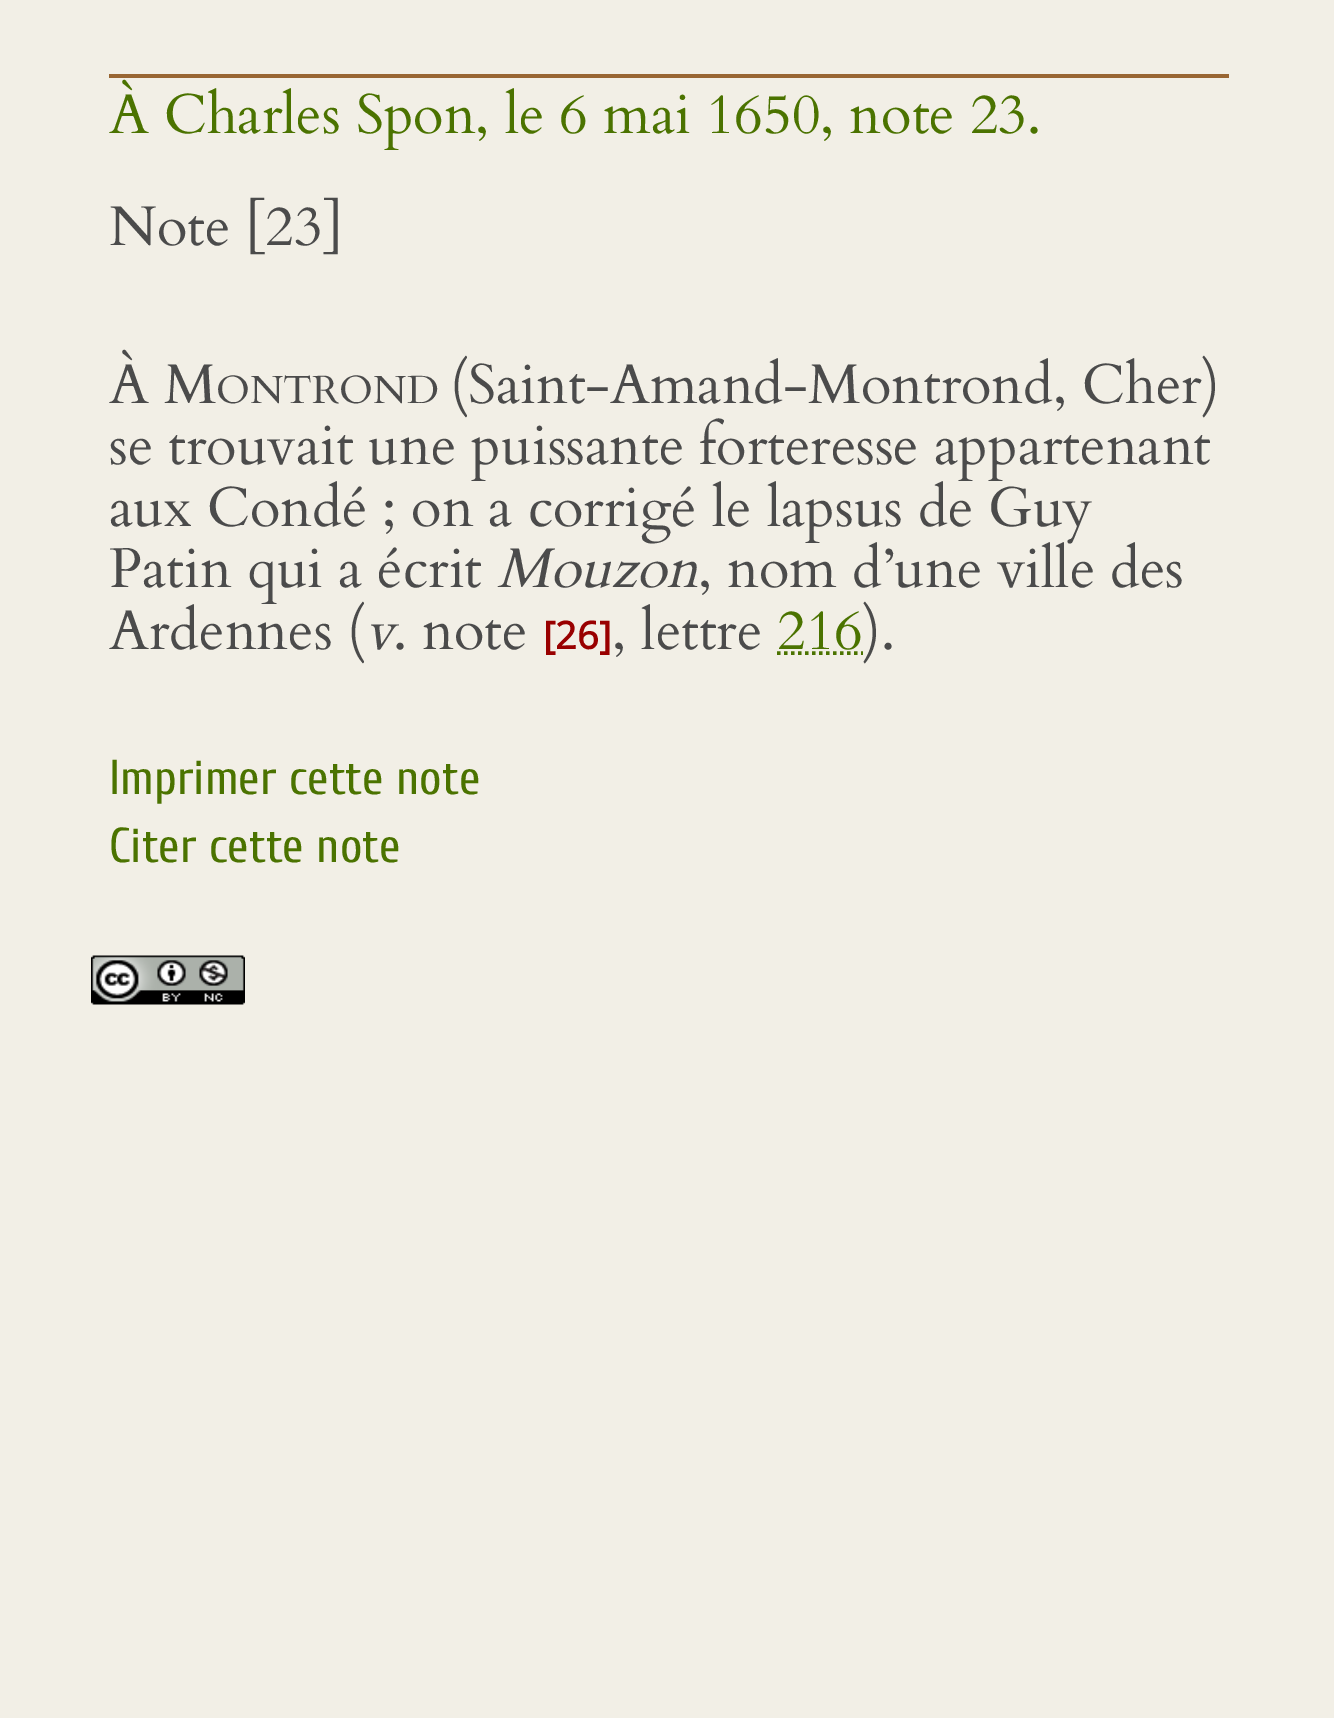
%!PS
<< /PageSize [1334 1718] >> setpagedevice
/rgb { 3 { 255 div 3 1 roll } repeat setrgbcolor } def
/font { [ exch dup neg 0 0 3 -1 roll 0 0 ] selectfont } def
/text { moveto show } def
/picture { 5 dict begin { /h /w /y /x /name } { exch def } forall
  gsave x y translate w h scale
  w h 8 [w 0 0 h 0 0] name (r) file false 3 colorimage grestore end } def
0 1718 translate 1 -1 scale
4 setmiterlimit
242 239 230 rgb
0 0 1334 1718 rectfill
153 102 51 rgb
109 74 1120 4 rectfill
75 115 0 rgb
3.5 setlinewidth
[3.5 3.5] 0 setdash
777 653 moveto 86 0 rlineto stroke
(img_01.rgb) 91 955 154 50 picture
/Cardo-Regular 56 font
(À Charles Spon, le 6 mai 1650, note 23.) 109 133 text
75 75 75 rgb
(Note [23]) 109 245 text
(À M) 109 403 text
/Cardo-Regular 39.25 font
(ONTROND) 216 403 text
/Cardo-Regular 56 font
(\(Saint-Amand-Montrond, Cher\)) 450 403 text
(se trouvait une puissante forteresse appartenant) 109 464 text
(aux Condé ; on a corrigé le lapsus de Guy) 109 526 text
(Patin qui a écrit) 109 587 text
/Cardo-Italic 56 font
(Mouzon) 497 587 text
/Cardo-Regular 56 font
(, nom d’une ville des) 698 587 text
(Ardennes \() 109 649 text
/Cardo-Italic 56 font
(v) 365 649 text
/Cardo-Regular 56 font
(. note) 393 649 text
/OpenSans-Bold 38 font
153 0 0 rgb
([26]) 543 649 text
/Cardo-Regular 56 font
75 75 75 rgb
(, lettre) 612 649 text
75 115 0 rgb
(216) 777 649 text
75 75 75 rgb
(\).) 863 649 text
/Cuprum-Regular 49 font
75 115 0 rgb
(Imprimer cette note) 109 794 text
(Citer cette note) 109 862 text
showpage
